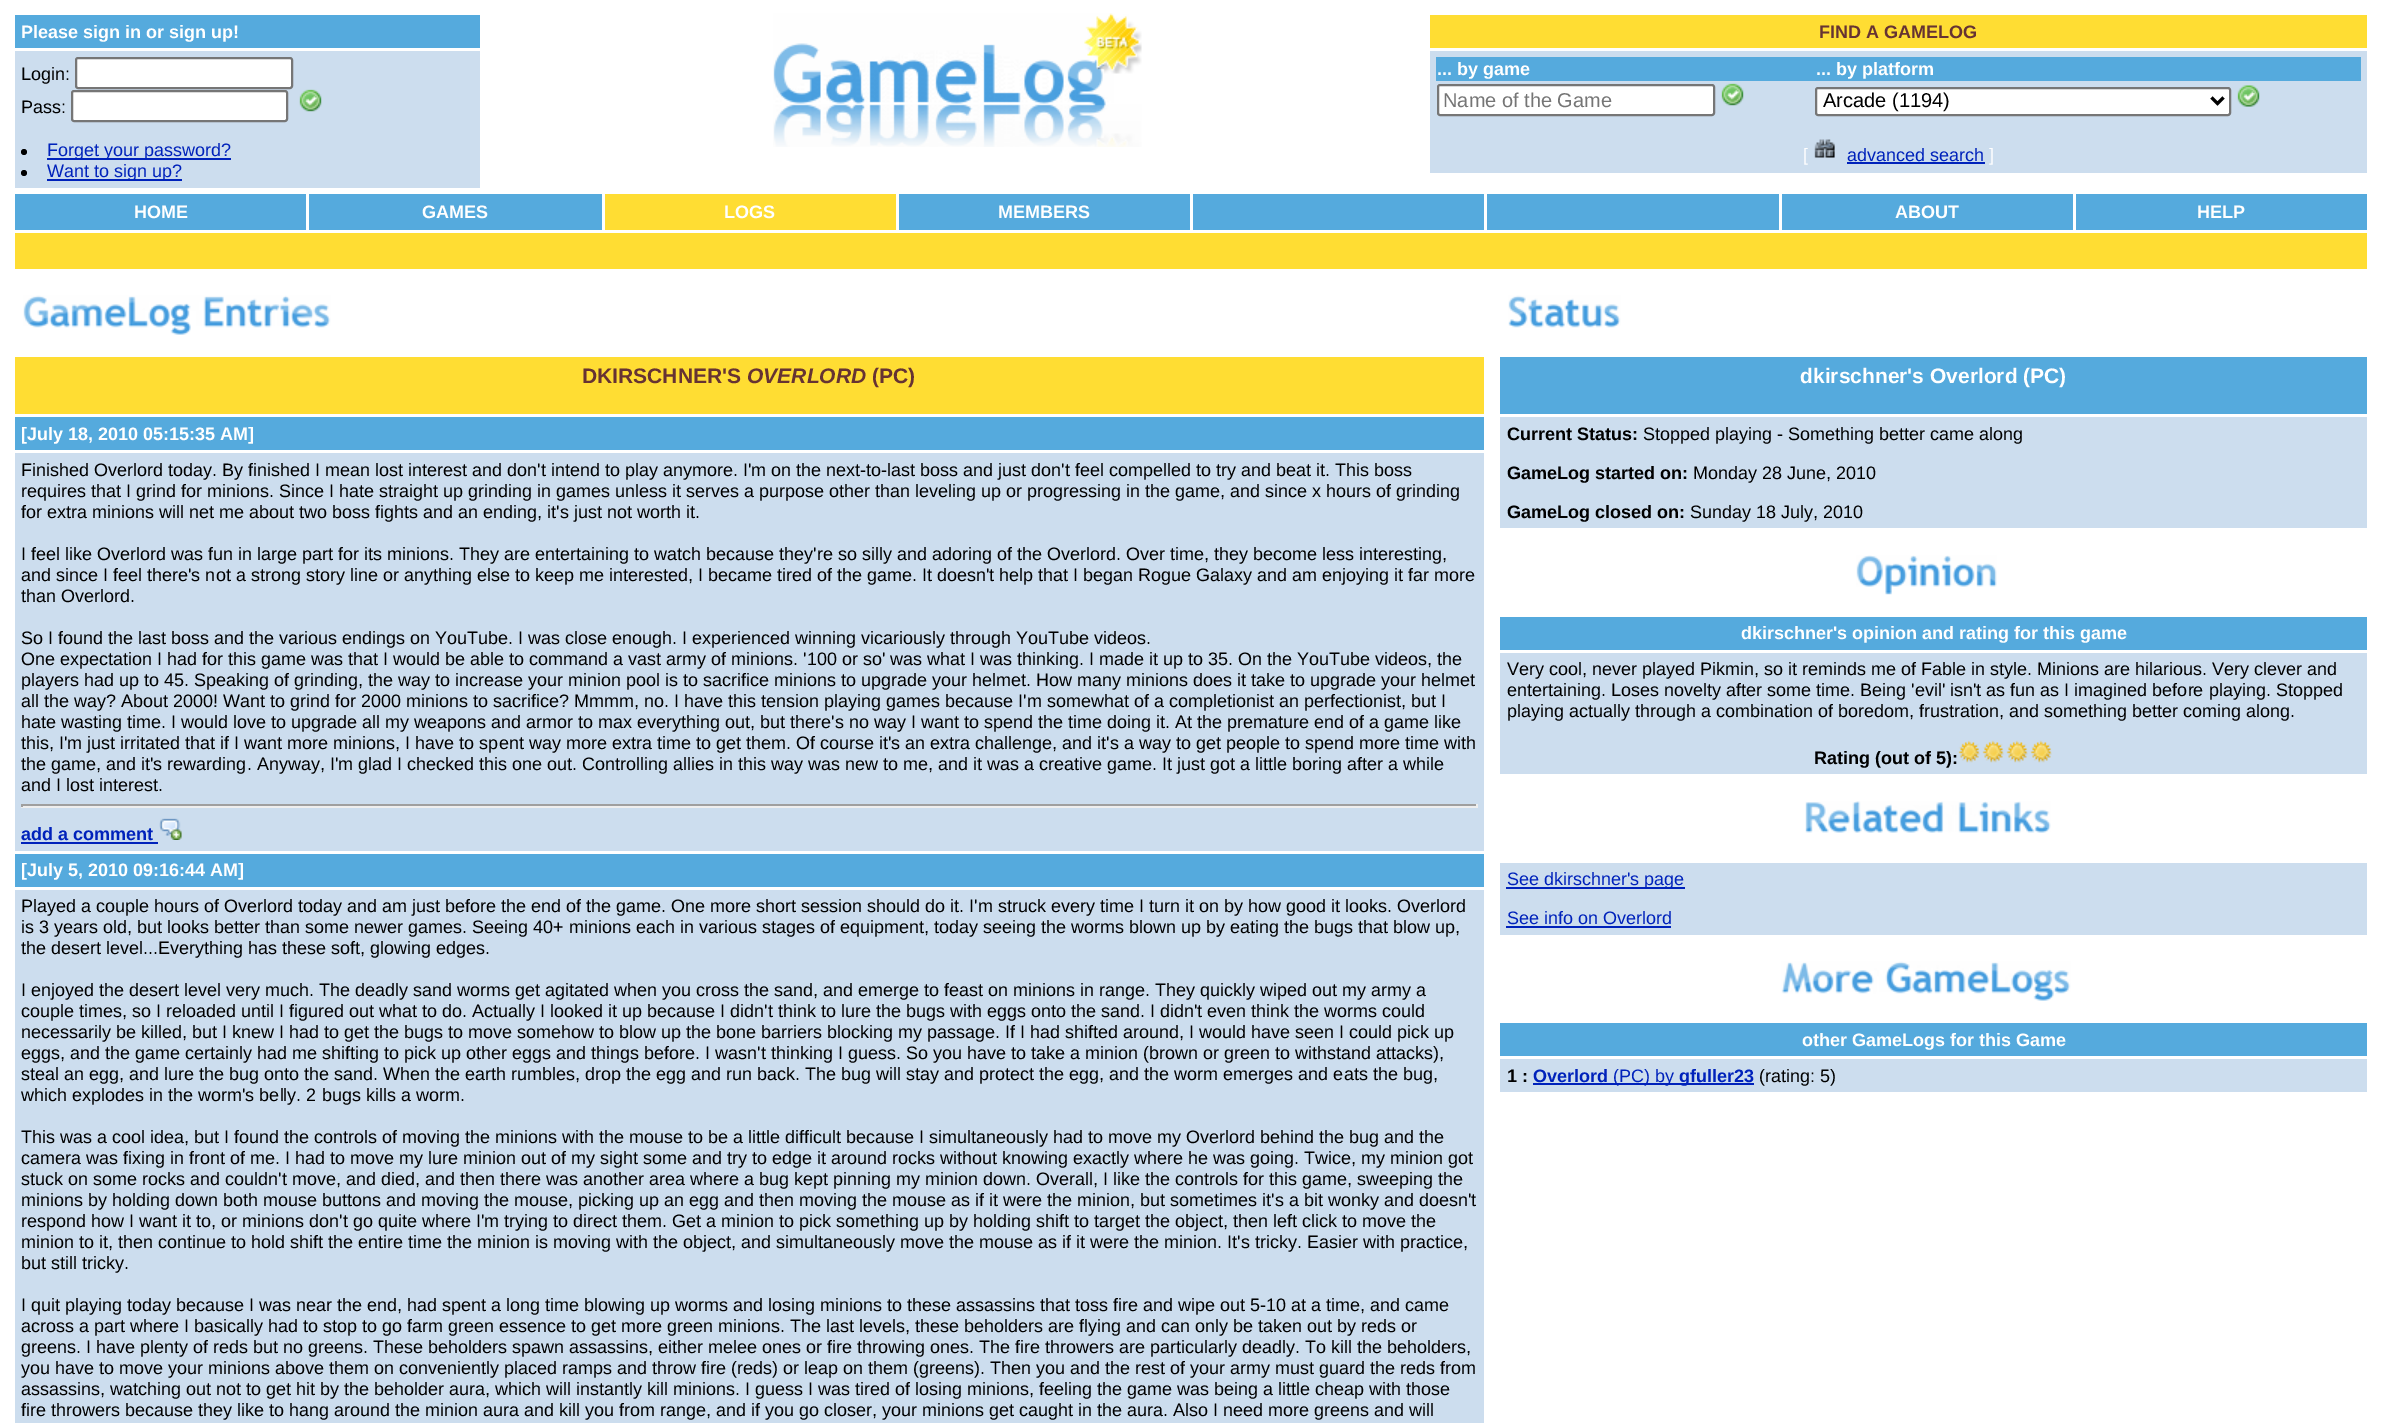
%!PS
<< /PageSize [2381 1423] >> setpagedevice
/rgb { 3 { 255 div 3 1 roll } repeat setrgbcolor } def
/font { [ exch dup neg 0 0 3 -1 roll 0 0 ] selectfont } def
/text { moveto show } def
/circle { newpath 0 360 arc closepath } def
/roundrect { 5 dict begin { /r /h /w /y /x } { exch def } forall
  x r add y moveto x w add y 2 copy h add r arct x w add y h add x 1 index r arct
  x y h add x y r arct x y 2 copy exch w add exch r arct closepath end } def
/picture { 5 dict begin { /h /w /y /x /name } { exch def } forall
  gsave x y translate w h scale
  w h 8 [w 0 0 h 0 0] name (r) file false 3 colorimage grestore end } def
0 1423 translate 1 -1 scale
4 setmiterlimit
255 255 255 rgb
0 0 2381 1423 rectfill
85 170 221 rgb
15 15 465 33 rectfill
204 221 238 rgb
15 51 465 137 rectfill
255 255 255 rgb
76 58 216 30 2 roundrect gsave fill grestore
118 118 118 rgb
2 setlinewidth
stroke
255 255 255 rgb
72 91 215 30 2 roundrect gsave fill grestore
118 118 118 rgb
stroke
(img_01.rgb) 299 89 23 23 picture
0 0 0 rgb
24 152 3 circle fill
0 34 187 rgb
47 158 184 2 rectfill
0 0 0 rgb
24 173 3 circle fill
0 34 187 rgb
47 179 135 2 rectfill
(img_02.rgb) 773 13 369 134 picture
255 221 51 rgb
1430 15 937 33 rectfill
204 221 238 rgb
1430 51 937 122 rectfill
85 170 221 rgb
1436 57 925 24 rectfill
255 255 255 rgb
1438 85 276 30 2 roundrect gsave fill grestore
118 118 118 rgb
stroke
(img_03.rgb) 1721 83 23 23 picture
255 255 255 rgb
1816 88 414 27 2 roundrect gsave fill grestore
118 118 118 rgb
stroke
0 0 0 rgb
3 setlinewidth
2211.5 97.5 moveto 6 6 rlineto 6 -6 rlineto stroke
(img_04.rgb) 2237 85 23 22 picture
(img_05.rgb) 1814 139 21 19 picture
0 34 187 rgb
1847 162 138 2 rectfill
85 170 221 rgb
15 194 291 36 rectfill
309 194 293 36 rectfill
255 221 51 rgb
605 194 291 36 rectfill
85 170 221 rgb
899 194 291 36 rectfill
1193 194 291 36 rectfill
1487 194 292 36 rectfill
1782 194 291 36 rectfill
2076 194 291 36 rectfill
255 221 51 rgb
15 233 2352 36 rectfill
(img_06.rgb) 23 295 308 40 picture
15 357 1469 57 rectfill
85 170 221 rgb
15 417 1469 33 rectfill
204 221 238 rgb
15 453 1469 398 rectfill
159 159 159 rgb
21 804 1457 2 rectfill
238 238 238 rgb
1476 804 2 3 rectfill
21 806 1457 2 rectfill
159 159 159 rgb
21 804 2 3 rectfill
0 34 187 rgb
21 842 137 2 rectfill
(img_07.rgb) 159 818 23 22 picture
85 170 221 rgb
15 854 1469 33 rectfill
204 221 238 rgb
15 890 1469 533 rectfill
(img_08.rgb) 1508 295 113 33 picture
85 170 221 rgb
1500 357 867 57 rectfill
204 221 238 rgb
1500 417 867 111 rectfill
(img_09.rgb) 1856 555 141 40 picture
85 170 221 rgb
1500 617 867 33 rectfill
204 221 238 rgb
1500 653 867 121 rectfill
(img_10.rgb) 1958 740 22 23 picture
(img_11.rgb) 1982 740 22 23 picture
(img_11.rgb) 2006 740 22 23 picture
(img_11.rgb) 2030 740 22 23 picture
(img_12.rgb) 1805 801 246 32 picture
1500 863 867 72 rectfill
0 34 187 rgb
1506 887 179 2 rectfill
1506 926 165 2 rectfill
(img_13.rgb) 1781 961 290 40 picture
85 170 221 rgb
1500 1023 867 33 rectfill
204 221 238 rgb
1500 1059 867 33 rectfill
0 34 187 rgb
1533 1083 221 2 rectfill
/LiberationSans-Bold 18 font
255 255 255 rgb
(Please sign in or sign up!) 21 38 text
/LiberationSans-Regular 18 font
0 0 0 rgb
(Login:) 21 80 text
(Pass:) 21 113 text
0 34 187 rgb
(Forget your password?) 47 156 text
(Want to sign up?) 47 177 text
/LiberationSans-Bold 18 font
102 51 51 rgb
(FIND A GAMELOG) 1819 38 text
255 255 255 rgb
(... by game) 1437 75 text
(... by platform) 1816 75 text
/LiberationSans-Regular 20 font
117 117 117 rgb
(Name of the Game) 1443 107 text
0 0 0 rgb
(Arcade \(1194\)) 1823 107 text
/LiberationSans-Regular 18 font
255 255 255 rgb
([) 1803 161 text
0 34 187 rgb
(advanced search) 1847 161 text
255 255 255 rgb
(]) 1989 161 text
/LiberationSans-Bold 18 font
(HOME) 134 218 text
(GAMES) 422 218 text
(LOGS) 724 218 text
(MEMBERS) 998 218 text
(ABOUT) 1895 218 text
(HELP) 2197 218 text
/LiberationSans-Bold 21 font
102 51 51 rgb
(DKIRSCHNER'S) 582 383 text
/LiberationSans-BoldItalic 21 font
(OVERLORD) 747 383 text
/LiberationSans-Bold 21 font
(\(PC\)) 872 383 text
/LiberationSans-Bold 18 font
255 255 255 rgb
([July 18, 2010 05:15:35 AM]) 21 440 text
/LiberationSans-Regular 18 font
0 0 0 rgb
(Finished Overlord today. By finished I mean lost interest and don't intend to play anymore. I'm on the next-to-last boss and just don't feel compelled to try and beat it. This boss) 21 476 text
(requires that I grind for minions. Since I hate straight up grinding in games unless it serves a purpose other than leveling up or progressing in the game, and since x hours of grinding) 21 497 text
(for extra minions will net me about two boss fights and an ending, it's just not worth it.) 21 518 text
(I feel like Overlord was fun in large part for its minions. They are entertaining to watch because they're so silly and adoring of the Overlord. Over time, they become less interesting,) 21 560 text
(and since I feel there's not a strong story line or anything else to keep me interested, I became tired of the game. It doesn't help that I began Rogue Galaxy and am enjoying it far more) 21 581 text
(than Overlord.) 21 602 text
(So I found the last boss and the various endings on YouTube. I was close enough. I experienced winning vicariously through YouTube videos.) 21 644 text
(One expectation I had for this game was that I would be able to command a vast army of minions. '100 or so' was what I was thinking. I made it up to 35. On the YouTube videos, the) 21 665 text
(players had up to 45. Speaking of grinding, the way to increase your minion pool is to sacrifice minions to upgrade your helmet. How many minions does it take to upgrade your helmet) 21 686 text
(all the way? About 2000! Want to grind for 2000 minions to sacrifice? Mmmm, no. I have this tension playing games because I'm somewhat of a completionist an perfectionist, but I) 21 707 text
(hate wasting time. I would love to upgrade all my weapons and armor to max everything out, but there's no way I want to spend the time doing it. At the premature end of a game like) 21 728 text
(this, I'm just irritated that if I want more minions, I have to spent way more extra time to get them. Of course it's an extra challenge, and it's a way to get people to spend more time with) 21 749 text
(the game, and it's rewarding. Anyway, I'm glad I checked this one out. Controlling allies in this way was new to me, and it was a creative game. It just got a little boring after a while) 21 770 text
(and I lost interest.) 21 791 text
/LiberationSans-Bold 18 font
0 34 187 rgb
(add a comment) 21 840 text
255 255 255 rgb
([July 5, 2010 09:16:44 AM]) 21 876 text
/LiberationSans-Regular 18 font
0 0 0 rgb
(Played a couple hours of Overlord today and am just before the end of the game. One more short session should do it. I'm struck every time I turn it on by how good it looks. Overlord) 21 912 text
(is 3 years old, but looks better than some newer games. Seeing 40+ minions each in various stages of equipment, today seeing the worms blown up by eating the bugs that blow up,) 21 933 text
(the desert level...Everything has these soft, glowing edges.) 21 954 text
(I enjoyed the desert level very much. The deadly sand worms get agitated when you cross the sand, and emerge to feast on minions in range. They quickly wiped out my army a) 21 996 text
(couple times, so I reloaded until I figured out what to do. Actually I looked it up because I didn't think to lure the bugs with eggs onto the sand. I didn't even think the worms could) 21 1017 text
(necessarily be killed, but I knew I had to get the bugs to move somehow to blow up the bone barriers blocking my passage. If I had shifted around, I would have seen I could pick up) 21 1038 text
(eggs, and the game certainly had me shifting to pick up other eggs and things before. I wasn't thinking I guess. So you have to take a minion \(brown or green to withstand attacks\),) 21 1059 text
(steal an egg, and lure the bug onto the sand. When the earth rumbles, drop the egg and run back. The bug will stay and protect the egg, and the worm emerges and eats the bug,) 21 1080 text
(which explodes in the worm's belly. 2 bugs kills a worm.) 21 1101 text
(This was a cool idea, but I found the controls of moving the minions with the mouse to be a little difficult because I simultaneously had to move my Overlord behind the bug and the) 21 1143 text
(camera was fixing in front of me. I had to move my lure minion out of my sight some and try to edge it around rocks without knowing exactly where he was going. Twice, my minion got) 21 1164 text
(stuck on some rocks and couldn't move, and died, and then there was another area where a bug kept pinning my minion down. Overall, I like the controls for this game, sweeping the) 21 1185 text
(minions by holding down both mouse buttons and moving the mouse, picking up an egg and then moving the mouse as if it were the minion, but sometimes it's a bit wonky and doesn't) 21 1206 text
(respond how I want it to, or minions don't go quite where I'm trying to direct them. Get a minion to pick something up by holding shift to target the object, then left click to move the) 21 1227 text
(minion to it, then continue to hold shift the entire time the minion is moving with the object, and simultaneously move the mouse as if it were the minion. It's tricky. Easier with practice,) 21 1248 text
(but still tricky.) 21 1269 text
(I quit playing today because I was near the end, had spent a long time blowing up worms and losing minions to these assassins that toss fire and wipe out 5-10 at a time, and came) 21 1311 text
(across a part where I basically had to stop to go farm green essence to get more green minions. The last levels, these beholders are flying and can only be taken out by reds or) 21 1332 text
(greens. I have plenty of reds but no greens. These beholders spawn assassins, either melee ones or fire throwing ones. The fire throwers are particularly deadly. To kill the beholders,) 21 1353 text
(you have to move your minions above them on conveniently placed ramps and throw fire \(reds\) or leap on them \(greens\). Then you and the rest of your army must guard the reds from) 21 1374 text
(assassins, watching out not to get hit by the beholder aura, which will instantly kill minions. I guess I was tired of losing minions, feeling the game was being a little cheap with those) 21 1395 text
(fire throwers because they like to hang around the minion aura and kill you from range, and if you go closer, your minions get caught in the aura. Also I need more greens and will) 21 1416 text
/LiberationSans-Bold 21 font
255 255 255 rgb
(dkirschner's Overlord \(PC\)) 1800 383 text
/LiberationSans-Bold 18 font
0 0 0 rgb
(Current Status:) 1507 440 text
/LiberationSans-Regular 18 font
(Stopped playing - Something better came along) 1643 440 text
/LiberationSans-Bold 18 font
(GameLog started on:) 1507 479 text
/LiberationSans-Regular 18 font
(Monday 28 June, 2010) 1693 479 text
/LiberationSans-Bold 18 font
(GameLog closed on:) 1507 518 text
/LiberationSans-Regular 18 font
(Sunday 18 July, 2010) 1690 518 text
/LiberationSans-Bold 18 font
255 255 255 rgb
(dkirschner's opinion and rating for this game) 1741 639 text
/LiberationSans-Regular 18 font
0 0 0 rgb
(Very cool, never played Pikmin, so it reminds me of Fable in style. Minions are hilarious. Very clever and) 1507 675 text
(entertaining. Loses novelty after some time. Being 'evil' isn't as fun as I imagined before playing. Stopped) 1507 696 text
(playing actually through a combination of boredom, frustration, and something better coming along.) 1507 717 text
/LiberationSans-Bold 18 font
(Rating \(out of 5\):) 1814 764 text
/LiberationSans-Regular 18 font
0 34 187 rgb
(See dkirschner's page) 1507 885 text
(See info on Overlord) 1507 924 text
/LiberationSans-Bold 18 font
255 255 255 rgb
(other GameLogs for this Game) 1802 1046 text
0 0 0 rgb
(1 :) 1507 1082 text
0 34 187 rgb
(Overlord) 1533 1082 text
/LiberationSans-Regular 18 font
(\(PC\) by) 1613 1082 text
/LiberationSans-Bold 18 font
(gfuller23) 1679 1082 text
/LiberationSans-Regular 18 font
0 0 0 rgb
(\(rating: 5\)) 1759 1082 text
showpage
